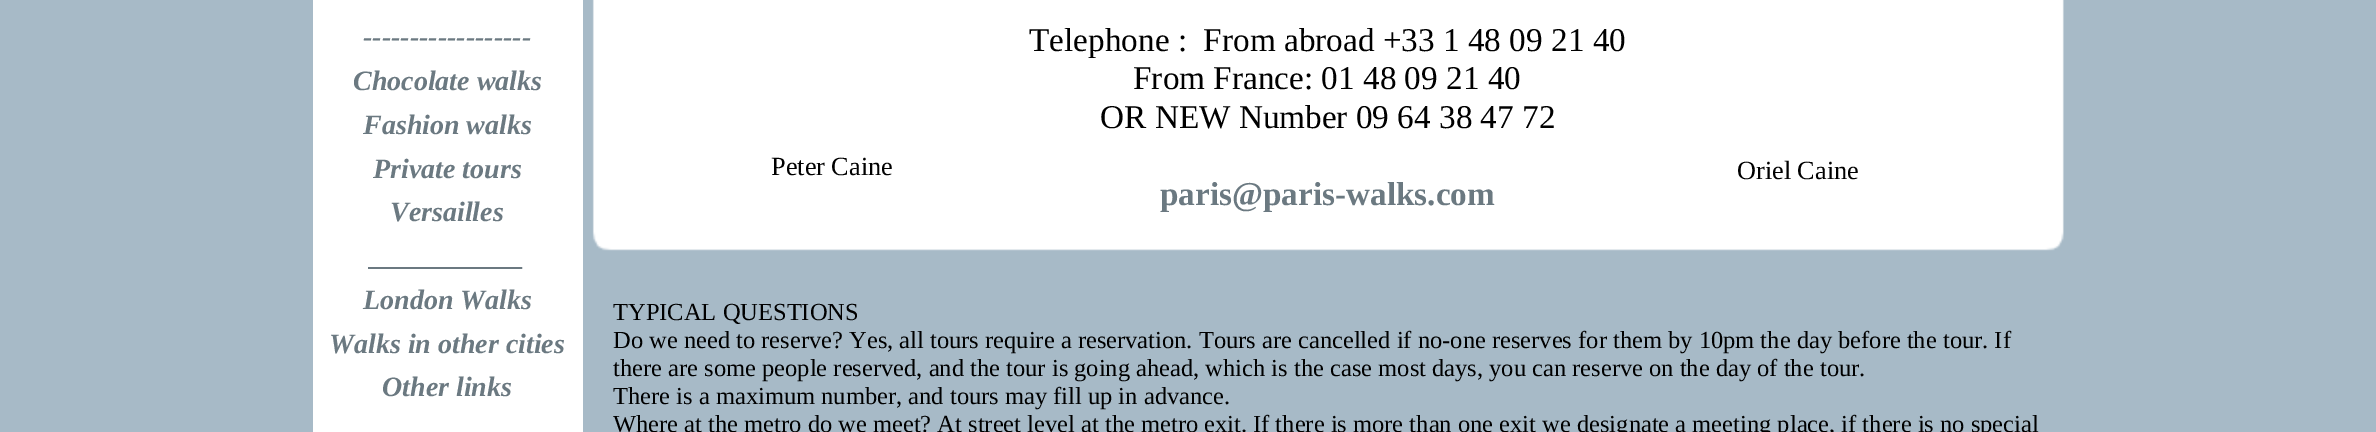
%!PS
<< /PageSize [2376 432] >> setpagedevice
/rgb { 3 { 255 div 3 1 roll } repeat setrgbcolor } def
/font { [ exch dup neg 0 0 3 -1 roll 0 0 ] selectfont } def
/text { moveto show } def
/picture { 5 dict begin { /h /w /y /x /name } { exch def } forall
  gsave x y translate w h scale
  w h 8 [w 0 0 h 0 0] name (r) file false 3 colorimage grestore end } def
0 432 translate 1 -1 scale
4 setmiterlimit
167 186 199 rgb
0 0 2376 432 rectfill
255 255 255 rgb
313 0 270 432 rectfill
(img_01.rgb) 592 0 1472 251 picture
/LiberationSerif-BoldItalic 28 font
107 121 129 rgb
(------------------) 363 46 text
(Chocolate walks) 353 90 text
(Fashion walks) 363 134 text
(Private tours) 373 178 text
(Versailles) 390 221 text
(___________) 370 265 text
(London Walks) 363 309 text
(Walks in other cities) 329 353 text
(Other links) 382 396 text
/LiberationSerif-Regular 26.25 font
0 0 0 rgb
(Peter Caine) 771 175 text
/LiberationSerif-Regular 33.25 font
(Telephone :  From abroad +33 1 48 09 21 40) 1029 51 text
(From France: 01 48 09 21 40) 1133 89 text
(OR NEW Number 09 64 38 47 72) 1100 128 text
/LiberationSerif-Bold 33.25 font
107 121 129 rgb
(paris@paris-walks.com) 1160 205 text
/LiberationSerif-Regular 26.25 font
0 0 0 rgb
(Oriel Caine) 1737 179 text
/LiberationSerif-Regular 24.5 font
(TYPICAL QUESTIONS) 613 320 text
(Do we need to reserve? Yes, all tours require a reservation. Tours are cancelled if no-one reserves for them by 10pm the day before the tour. If) 613 348 text
(there are some people reserved, and the tour is going ahead, which is the case most days, you can reserve on the day of the tour.) 613 376 text
(There is a maximum number, and tours may fill up in advance.) 613 404 text
(Where at the metro do we meet? At street level at the metro exit. If there is more than one exit we designate a meeting place, if there is no special) 613 432 text
showpage
